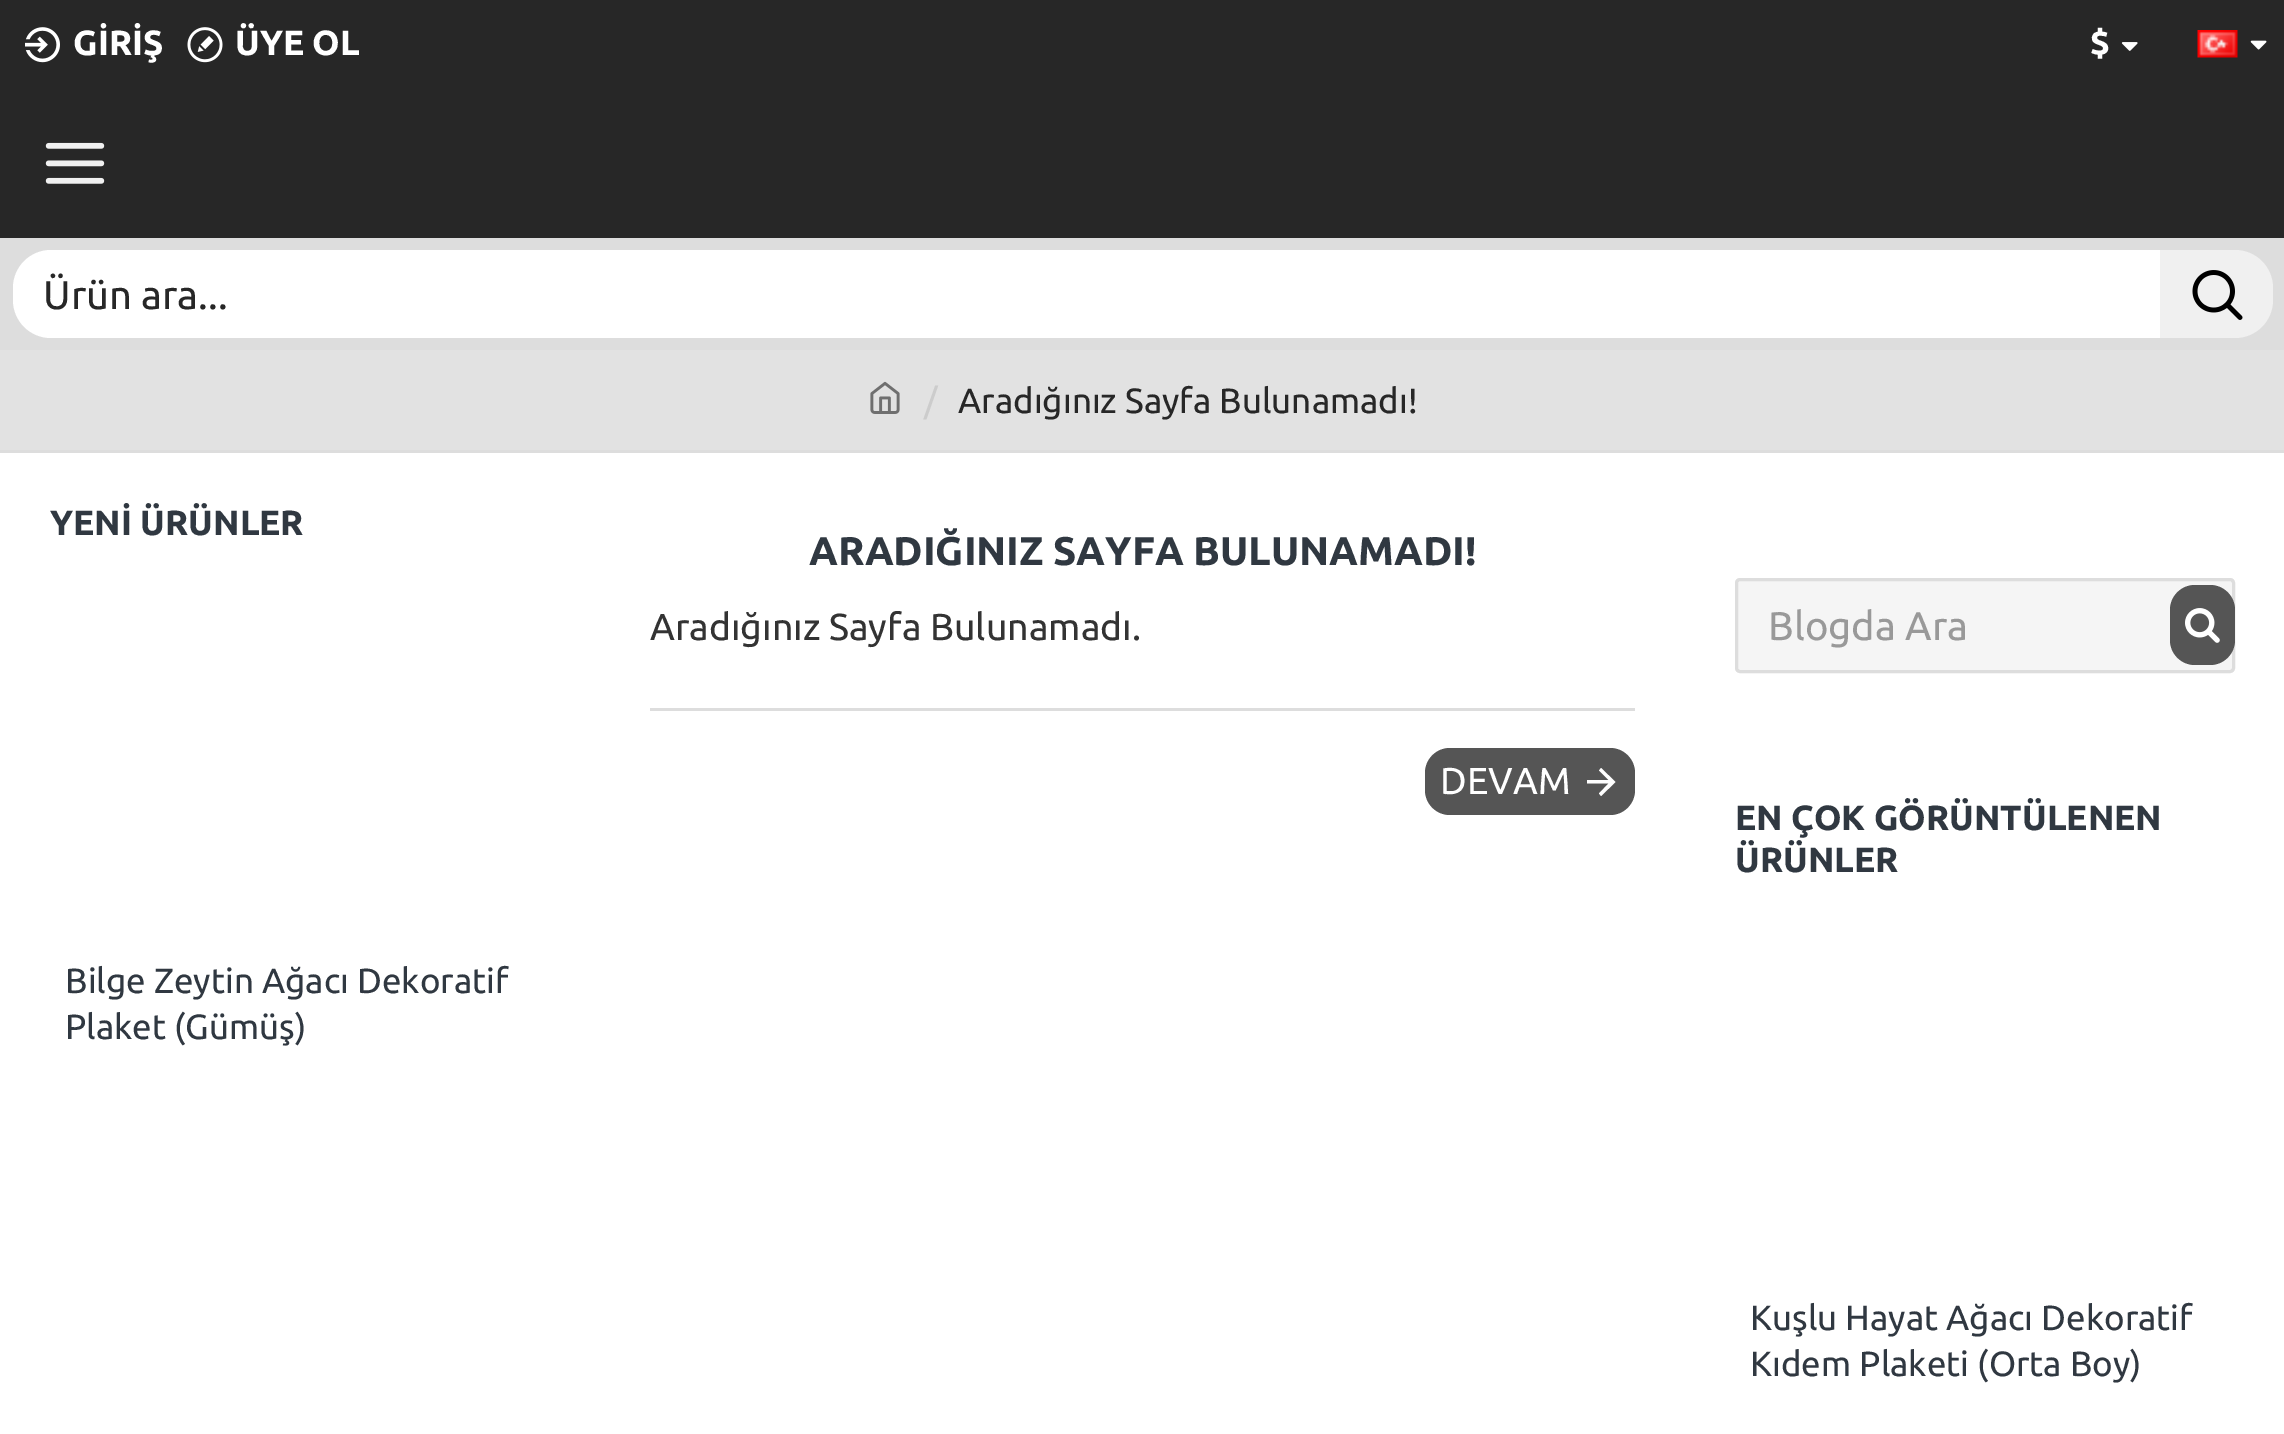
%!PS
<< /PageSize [2284 1434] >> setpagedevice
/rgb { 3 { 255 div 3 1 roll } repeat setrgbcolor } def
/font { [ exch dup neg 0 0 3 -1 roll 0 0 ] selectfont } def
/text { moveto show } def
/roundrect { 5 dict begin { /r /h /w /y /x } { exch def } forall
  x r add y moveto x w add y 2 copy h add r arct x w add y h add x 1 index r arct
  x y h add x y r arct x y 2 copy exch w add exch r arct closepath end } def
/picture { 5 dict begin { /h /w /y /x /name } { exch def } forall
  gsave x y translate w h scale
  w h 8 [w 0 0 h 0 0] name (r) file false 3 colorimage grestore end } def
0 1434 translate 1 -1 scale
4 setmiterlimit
255 255 255 rgb
0 0 2284 1434 rectfill
39 39 39 rgb
0 0 2284 238 rectfill
(img_01.rgb) 45 142 60 42 picture
(img_02.rgb) 25 27 35 36 picture
(img_03.rgb) 187 27 36 36 picture
(img_04.rgb) 2121 42 17 9 picture
(img_05.rgb) 2197 30 41 28 picture
(img_06.rgb) 2250 40 17 10 picture
221 221 221 rgb
0 238 2284 112 rectfill
255 255 255 rgb
51 250 moveto 2109 0 rlineto 0 88 rlineto -2109 0 rlineto -21 0 -38 -17 -38 -38 rcurveto 0 -12 rlineto 0 -21 17 -38 38 -38 rcurveto closepath fill
240 240 240 rgb
2160 250 moveto 75 0 rlineto 21 0 38 17 38 38 rcurveto 0 12 rlineto 0 21 -17 38 -38 38 rcurveto -75 0 rlineto closepath fill
(img_07.rgb) 2192 270 51 50 picture
226 226 226 rgb
0 350 2284 100 rectfill
221 221 221 rgb
0 450 2284 3 rectfill
(img_08.rgb) 870 381 30 33 picture
650 708 985 3 rectfill
85 85 85 rgb
1425 748 210 67 25 roundrect fill
255 255 255 rgb
1601 768 moveto 14.5 14 rlineto -14.5 14 rlineto -2 -2.5 rlineto 9.5 -10 rlineto -21.5 0 rlineto 0 -3.5 rlineto 21.5 0 rlineto -9.5 -9.5 rlineto closepath fill
245 245 245 rgb
1736.5 579.5 497 92 3.5 roundrect gsave fill grestore
221 221 221 rgb
3 setlinewidth
stroke
85 85 85 rgb
2170 585 65 80 25 roundrect fill
(img_09.rgb) 2185 608 35 35 picture
/Ubuntu-Bold 35 font
255 255 255 rgb
(GİRİŞ) 73 55 text
(ÜYE OL) 235 55 text
($) 2090 55 text
/Ubuntu-Regular 40 font
39 39 39 rgb
(Ürün ara...) 43 309 text
/Ubuntu-Regular 35 font
204 204 204 rgb
(/) 924 413 text
39 39 39 rgb
(Aradığınız Sayfa Bulunamadı!) 958 413 text
/Ubuntu-Bold 35 font
48 56 65 rgb
(YENİ ÜRÜNLER) 50 535 text
/Ubuntu-Regular 35 font
(Bilge Zeytin Ağacı Dekoratif) 65 993 text
(Plaket \(Gümüş\)) 65 1039 text
/Ubuntu-Bold 40 font
(ARADIĞINIZ SAYFA BULUNAMADI!) 809 565 text
/Ubuntu-Regular 37.5 font
51 51 51 rgb
(Aradığınız Sayfa Bulunamadı.) 650 640 text
255 255 255 rgb
(DEVAM) 1440 794 text
/Ubuntu-Regular 40 font
153 153 153 rgb
(Blogda Ara) 1768 640 text
/Ubuntu-Bold 35 font
48 56 65 rgb
(EN ÇOK GÖRÜNTÜLENEN) 1735 830 text
(ÜRÜNLER) 1735 872 text
/Ubuntu-Regular 35 font
(Kuşlu Hayat Ağacı Dekoratif) 1750 1330 text
(Kıdem Plaketi \(Orta Boy\)) 1750 1376 text
showpage
